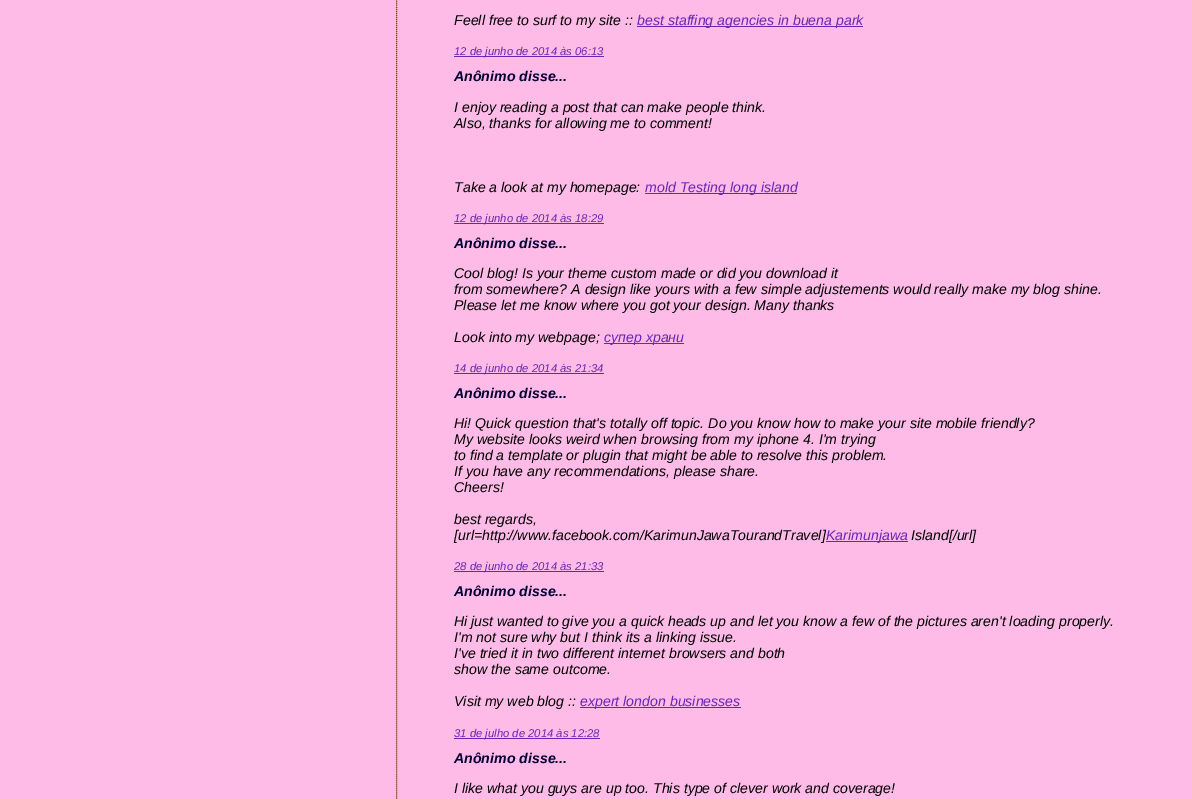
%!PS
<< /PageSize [1192 799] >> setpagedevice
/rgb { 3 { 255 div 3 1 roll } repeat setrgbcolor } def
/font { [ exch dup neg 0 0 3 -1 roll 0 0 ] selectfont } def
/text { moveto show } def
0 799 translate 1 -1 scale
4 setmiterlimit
255 187 232 rgb
0 0 1192 799 rectfill
111 60 27 rgb
[1 1] 0 setdash
396.5 -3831 moveto 0 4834 rlineto stroke
103 40 178 rgb
637 26 226 1 rectfill
454 56 150 1 rectfill
645 193 152 1 rectfill
454 223 150 1 rectfill
604 343 80 1 rectfill
454 373 150 1 rectfill
454 571 150 1 rectfill
580 707 161 1 rectfill
454 738 146 1 rectfill
/LiberationSans-Italic 14.15 font
0 0 0 rgb
(Feell free to surf to my site ::) 454 25 text
103 40 178 rgb
(best staffing agencies in buena park) 637 25 text
/LiberationSans-Italic 11.3 font
(12 de junho de 2014 às 06:13) 454 55 text
/LiberationSans-BoldItalic 14.15 font
0 0 51 rgb
(Anônimo disse...) 454 81 text
/LiberationSans-Italic 14.15 font
0 0 0 rgb
(I enjoy reading a post that can make people think.) 454 112 text
(Also, thanks for allowing me to comment!) 454 128 text
(Take a look at my homepage:) 454 192 text
103 40 178 rgb
(mold Testing long island) 645 192 text
/LiberationSans-Italic 11.3 font
(12 de junho de 2014 às 18:29) 454 222 text
/LiberationSans-BoldItalic 14.15 font
0 0 51 rgb
(Anônimo disse...) 454 248 text
/LiberationSans-Italic 14.15 font
0 0 0 rgb
(Cool blog! Is your theme custom made or did you download it) 454 278 text
(from somewhere? A design like yours with a few simple adjustements would really make my blog shine.) 454 294 text
(Please let me know where you got your design. Many thanks) 454 310 text
(Look into my webpage;) 454 342 text
103 40 178 rgb
(супер храни) 604 342 text
/LiberationSans-Italic 11.3 font
(14 de junho de 2014 às 21:34) 454 372 text
/LiberationSans-BoldItalic 14.15 font
0 0 51 rgb
(Anônimo disse...) 454 398 text
/LiberationSans-Italic 14.15 font
0 0 0 rgb
(Hi! Quick question that's totally off topic. Do you know how to make your site mobile friendly?) 454 428 text
(My website looks weird when browsing from my iphone 4. I'm trying) 454 444 text
(to find a template or plugin that might be able to resolve this problem.) 454 460 text
(If you have any recommendations, please share.) 454 476 text
(Cheers!) 454 492 text
(best regards,) 454 524 text
([url=http://www.facebook.com/KarimunJawaTourandTravel]) 454 540 text
103 40 178 rgb
826 541 82 1 rectfill
(Karimunjawa) 826 540 text
0 0 0 rgb
(Island[/url]) 911 540 text
/LiberationSans-Italic 11.3 font
103 40 178 rgb
(28 de junho de 2014 às 21:33) 454 570 text
/LiberationSans-BoldItalic 14.15 font
0 0 51 rgb
(Anônimo disse...) 454 596 text
/LiberationSans-Italic 14.15 font
0 0 0 rgb
(Hi just wanted to give you a quick heads up and let you know a few of the pictures aren't loading properly.) 454 626 text
(I'm not sure why but I think its a linking issue.) 454 642 text
(I've tried it in two different internet browsers and both) 454 658 text
(show the same outcome.) 454 674 text
(Visit my web blog ::) 454 706 text
103 40 178 rgb
(expert london businesses) 580 706 text
/LiberationSans-Italic 11.3 font
(31 de julho de 2014 às 12:28) 454 737 text
/LiberationSans-BoldItalic 14.15 font
0 0 51 rgb
(Anônimo disse...) 454 763 text
/LiberationSans-Italic 14.15 font
0 0 0 rgb
(I like what you guys are up too. This type of clever work and coverage!) 454 793 text
showpage
